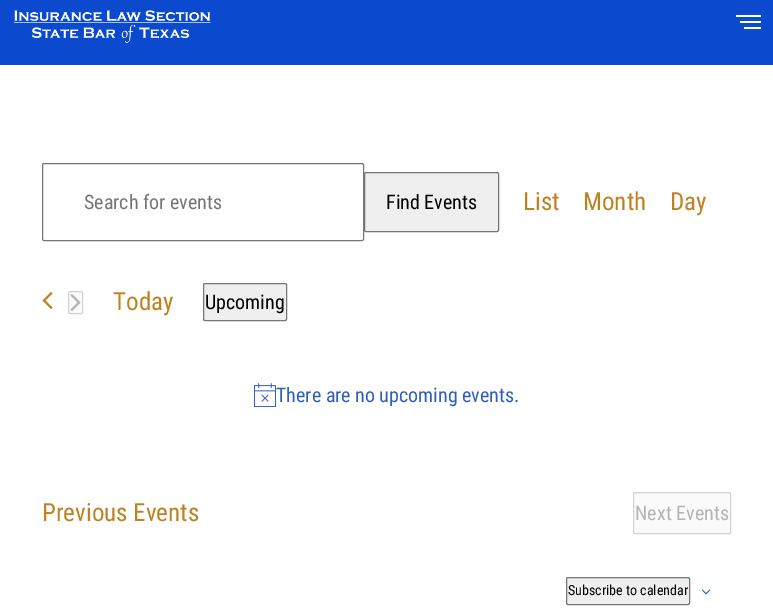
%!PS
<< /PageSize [773 615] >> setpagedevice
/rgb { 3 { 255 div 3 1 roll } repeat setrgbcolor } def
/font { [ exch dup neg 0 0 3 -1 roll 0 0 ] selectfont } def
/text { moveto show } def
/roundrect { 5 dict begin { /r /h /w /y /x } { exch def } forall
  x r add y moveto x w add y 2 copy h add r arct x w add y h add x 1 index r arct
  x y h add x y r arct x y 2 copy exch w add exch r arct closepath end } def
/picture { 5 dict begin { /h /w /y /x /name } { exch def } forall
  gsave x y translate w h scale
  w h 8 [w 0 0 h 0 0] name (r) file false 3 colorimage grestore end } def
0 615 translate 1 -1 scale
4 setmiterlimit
255 255 255 rgb
0 0 773 615 rectfill
11 73 206 rgb
0 0 773 65 rectfill
(img_01.rgb) 13 10 198 33 picture
255 255 255 rgb
736 15 25 2 rectfill
740 21 21 2 rectfill
744 27 17 2 rectfill
118 118 118 rgb
42.5 163.5 321 77 1.5 roundrect stroke
239 239 239 rgb
364.5 172.5 134 59 1.5 roundrect gsave fill grestore
118 118 118 rgb
stroke
(img_02.rgb) 42 291 11 19 picture
250 250 250 rgb
68.5 291.5 14 22 1.5 roundrect gsave fill grestore
210 210 210 rgb
stroke
(img_03.rgb) 70 294 11 17 picture
239 239 239 rgb
203.5 283.5 83 37 1.5 roundrect gsave fill grestore
118 118 118 rgb
stroke
(img_04.rgb) 254 383 22 24 picture
250 250 250 rgb
633.5 492.5 97 41 1.5 roundrect gsave fill grestore
210 210 210 rgb
stroke
239 239 239 rgb
566.5 577.5 123 27 1.5 roundrect gsave fill grestore
118 118 118 rgb
stroke
(img_05.rgb) 701 589 10 6 picture
/RobotoCondensed-Regular 20 font
117 117 117 rgb
(Search for events) 84 209 text
0 0 0 rgb
(Find Events) 386 209 text
/RobotoCondensed-Regular 25 font
192 129 33 rgb
(List) 523 210 text
(Month) 583 210 text
(Day) 670 210 text
(Today) 113 310 text
/RobotoCondensed-Regular 20 font
0 0 0 rgb
(Upcoming) 205 309 text
47 94 195 rgb
(There are no upcoming events.) 276 402 text
/RobotoCondensed-Regular 25 font
192 129 33 rgb
(Previous Events) 42 521 text
/RobotoCondensed-Regular 20 font
180 180 180 rgb
(Next Events) 635 520 text
/RobotoCondensed-Regular 14 font
0 0 0 rgb
(Subscribe to calendar) 568 595 text
showpage
